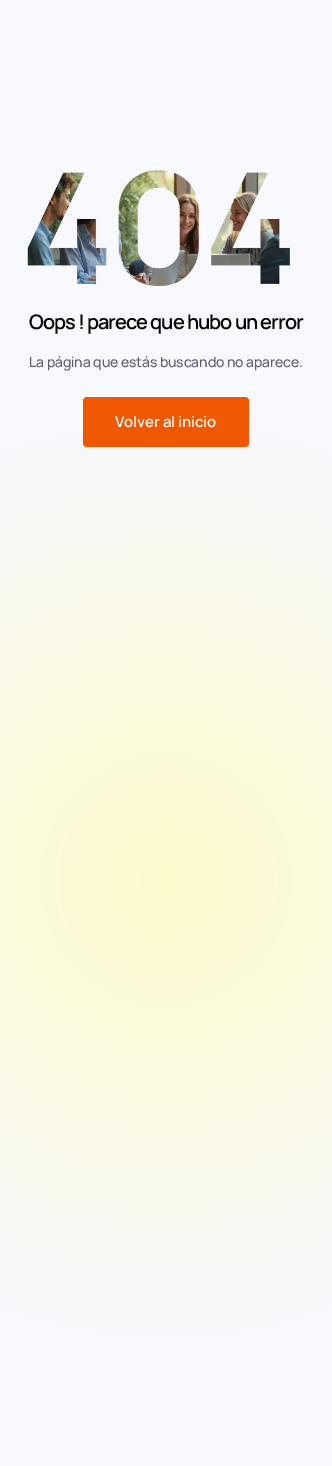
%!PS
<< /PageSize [332 1466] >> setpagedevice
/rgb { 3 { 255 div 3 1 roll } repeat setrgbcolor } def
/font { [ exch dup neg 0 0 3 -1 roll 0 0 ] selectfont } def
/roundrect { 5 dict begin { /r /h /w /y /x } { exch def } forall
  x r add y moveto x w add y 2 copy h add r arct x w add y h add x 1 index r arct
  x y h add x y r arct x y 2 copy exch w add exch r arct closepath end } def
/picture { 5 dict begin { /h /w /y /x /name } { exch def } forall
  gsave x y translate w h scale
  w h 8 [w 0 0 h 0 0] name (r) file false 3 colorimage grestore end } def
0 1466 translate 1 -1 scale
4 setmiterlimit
255 255 255 rgb
0 0 332 1466 rectfill
gsave 0 0 moveto 332 0 rlineto 0 1466 rlineto -332 0 rlineto closepath clip newpath 166 880 translate 895 895 scale
<< /ShadingType 3 /ColorSpace /DeviceRGB /Coords [0 0 0 0 0 1] /Extend [true true] /Function << /FunctionType 3 /Domain [0 1] /Functions [<< /FunctionType 2 /Domain [0 1] /C0 [0.992 0.984 0.796] /C1 [0.973 0.973 1] /N 1 >> << /FunctionType 2 /Domain [0 1] /C0 [0.973 0.973 1] /C1 [0.973 0.973 1] /N 1 >>] /Bounds [0.53] /Encode [0 1 0 1] >> >> shfill grestore
(img_01.rgb) 27 170 263 116 picture
239 88 0 rgb
83 397 166 50 4 roundrect fill
/Manrope-SemiBold 20 font
5 7 4 rgb
29 329 moveto -1 0 (Oops ! parece que hubo un error) ashow
/Manrope-Medium 14 font
97 92 115 rgb
29 367 moveto -0.1 0 (La página que estás buscando no aparece.) ashow
/Manrope-SemiBold 15 font
255 255 255 rgb
115 427 moveto -0.1 0 (Volver al inicio) ashow
showpage
